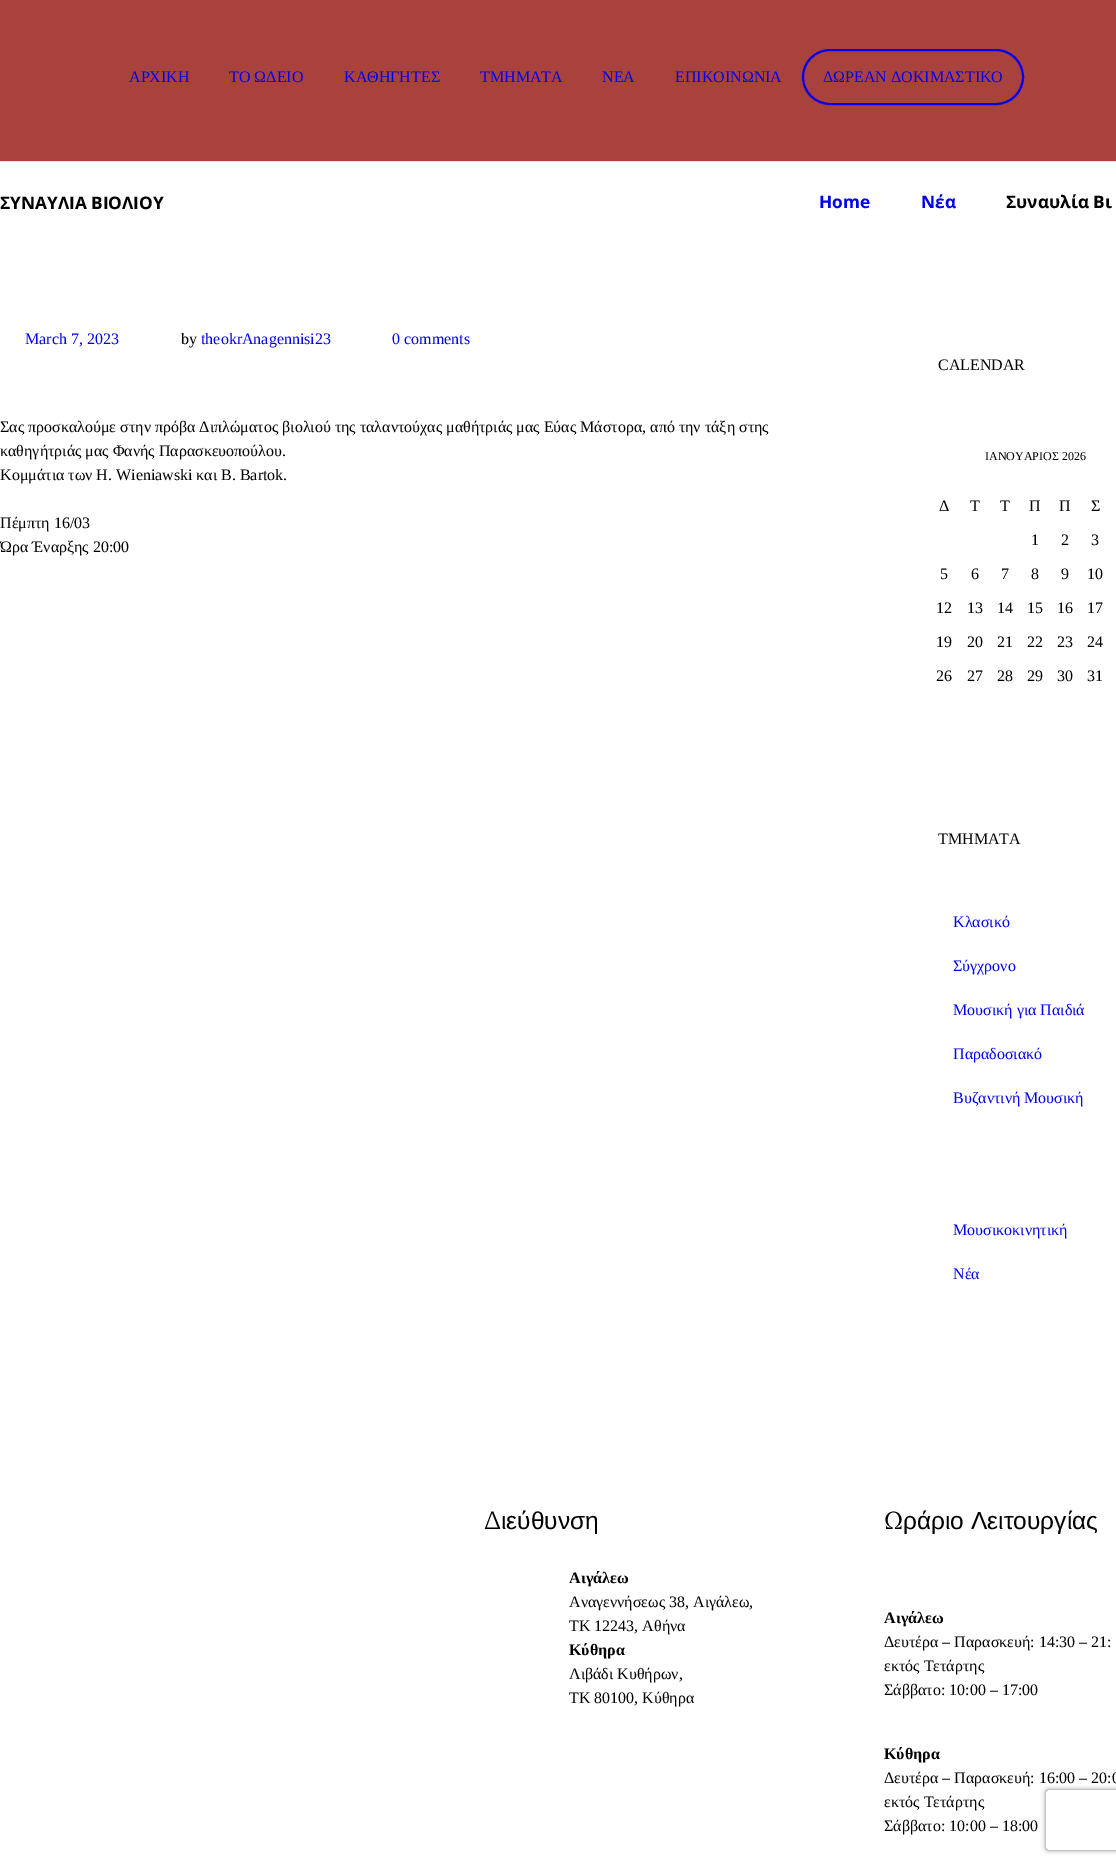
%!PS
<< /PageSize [1116 1864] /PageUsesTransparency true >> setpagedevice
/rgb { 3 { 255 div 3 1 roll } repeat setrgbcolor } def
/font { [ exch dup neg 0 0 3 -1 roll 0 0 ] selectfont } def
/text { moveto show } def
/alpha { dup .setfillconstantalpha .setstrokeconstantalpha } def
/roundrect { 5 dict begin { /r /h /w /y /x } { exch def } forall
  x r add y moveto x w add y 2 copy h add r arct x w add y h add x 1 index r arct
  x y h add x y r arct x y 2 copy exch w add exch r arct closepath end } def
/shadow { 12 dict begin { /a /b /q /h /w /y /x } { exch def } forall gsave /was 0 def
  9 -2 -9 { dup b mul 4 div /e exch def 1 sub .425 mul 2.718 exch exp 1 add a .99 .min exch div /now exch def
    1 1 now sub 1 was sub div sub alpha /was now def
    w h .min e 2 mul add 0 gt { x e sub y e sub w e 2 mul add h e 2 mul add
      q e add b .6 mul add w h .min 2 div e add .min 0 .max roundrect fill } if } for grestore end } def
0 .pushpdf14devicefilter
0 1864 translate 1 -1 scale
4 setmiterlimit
255 255 255 rgb
0 0 1116 1864 rectfill
169 65 61 rgb
0 0 1116 161 rectfill
0 0 238 rgb
2 setlinewidth
803 50 220 54 27 roundrect stroke
230 230 230 rgb
0 161 1116 1 rectfill
gsave
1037 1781 moveto 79 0 rlineto 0 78 rlineto -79 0 rlineto closepath 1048 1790 moveto 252 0 rlineto 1 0 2 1 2 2 rcurveto 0 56 rlineto 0 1 -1 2 -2 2 rcurveto -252 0 rlineto -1 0 -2 -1 -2 -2 rcurveto 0 -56 rlineto 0 -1 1 -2 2 -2 rcurveto closepath eoclip newpath
128 128 128 rgb
1046 1790 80 60 2 2.5 1 shadow
grestore
/LiberationSerif-Regular 16 font
0 0 238 rgb
(ΑΡΧΙΚΗ) 129 82 text
(ΤΟ ΩΔΕΙΟ) 229 82 text
(ΚΑΘΗΓΗΤΕΣ) 344 82 text
(ΤΜΗΜΑΤΑ) 480 82 text
(ΝΕΑ) 602 82 text
(ΕΠΙΚΟΙΝΩΝΙΑ) 675 82 text
(ΔΩΡΕΑΝ ΔΟΚΙΜΑΣΤΙΚΟ) 823 82 text
/OpenSans-Bold 17.25 font
0 0 0 rgb
(ΣΥΝΑΥΛΙΑ ΒΙΟΛΙΟΥ) 0 209 text
0 0 238 rgb
(Home) 819 208 text
(Νέα) 921 208 text
0 0 0 rgb
(Συναυλία Βι) 1006 208 text
/LiberationSerif-Regular 16 font
0 0 238 rgb
(March 7, 2023) 25 344 text
0 0 0 rgb
(by) 181 344 text
0 0 238 rgb
(theokrAnagennisi23) 201 344 text
(0 comments) 392 344 text
0 0 0 rgb
(Σας προσκαλούμε στην πρόβα Διπλώματος βιολιού της ταλαντούχας μαθήτριάς μας Εύας Μάστορα, από την τάξη στης) 0 432 text
(καθηγήτριάς μας Φανής Παρασκευοπούλου.) 0 456 text
(Κομμάτια των H. Wieniawski και B. Bartok.) 0 480 text
(Πέμπτη 16/03) 0 528 text
(Ώρα Έναρξης 20:00) 0 552 text
(CALENDAR) 938 370 text
/LiberationSerif-Regular 12 font
(ΙΑΝΟΥΑΡΙΟΣ 2026) 985 460 text
/LiberationSerif-Regular 16 font
(Δ) 939 511 text
(Τ) 970 511 text
(Τ) 1000 511 text
(Π) 1029 511 text
(Π) 1059 511 text
(Σ) 1091 511 text
(1) 1031 545 text
(2) 1061 545 text
(3) 1091 545 text
(5) 940 579 text
(6) 971 579 text
(7) 1001 579 text
(8) 1031 579 text
(9) 1061 579 text
(10) 1087 579 text
(12) 936 613 text
(13) 967 613 text
(14) 997 613 text
(15) 1027 613 text
(16) 1057 613 text
(17) 1087 613 text
(19) 936 647 text
(20) 967 647 text
(21) 997 647 text
(22) 1027 647 text
(23) 1057 647 text
(24) 1087 647 text
(26) 936 681 text
(27) 967 681 text
(28) 997 681 text
(29) 1027 681 text
(30) 1057 681 text
(31) 1087 681 text
(ΤΜΗΜΑΤΑ) 938 844 text
0 0 238 rgb
(Κλασικό) 953 927 text
(Σύγχρονο) 953 971 text
(Μουσική για Παιδιά) 953 1015 text
(Παραδοσιακό) 953 1059 text
(Βυζαντινή Μουσική) 953 1103 text
(Μουσικοκινητική) 953 1235 text
(Νέα) 953 1279 text
/Lora-Regular 24.5 font
0 0 0 rgb
(Δ) 484 1529 text
/LiberationSans-Regular 24.5 font
(ιεύθυνση) 501 1529 text
/LiberationSerif-Bold 16 font
(Αιγάλεω) 569 1583 text
/LiberationSerif-Regular 16 font
(Αναγεννήσεως 38, Αιγάλεω,) 569 1607 text
(TK 12243, Αθήνα) 569 1631 text
/LiberationSerif-Bold 16 font
(Κύθηρα) 569 1655 text
/LiberationSerif-Regular 16 font
(Λιβάδι Κυθήρων,) 569 1679 text
(TK 80100, Κύθηρα) 569 1703 text
/Lora-Regular 24.5 font
(Ω) 884 1529 text
/LiberationSans-Regular 24.5 font
(ράριο Λειτουργίας) 903 1529 text
/LiberationSerif-Bold 16 font
(Αιγάλεω) 884 1623 text
/LiberationSerif-Regular 16 font
(Δευτέρα – Παρασκευή: 14:30 – 21:) 884 1647 text
(εκτός Τετάρτης) 884 1671 text
(Σάββατο: 10:00 – 17:00) 884 1695 text
/LiberationSerif-Bold 16 font
(Κύθηρα) 884 1759 text
/LiberationSerif-Regular 16 font
(Δευτέρα – Παρασκευή: 16:00 – 20:0) 884 1783 text
(εκτός Τετάρτης) 884 1807 text
(Σάββατο: 10:00 – 18:00) 884 1831 text
.poppdf14devicefilter showpage
